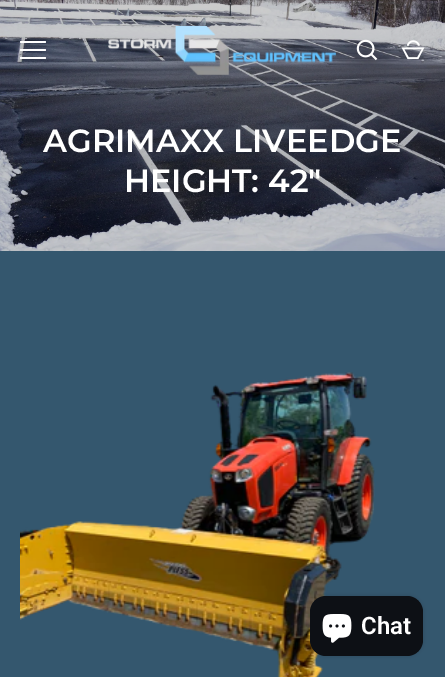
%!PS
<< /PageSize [445 677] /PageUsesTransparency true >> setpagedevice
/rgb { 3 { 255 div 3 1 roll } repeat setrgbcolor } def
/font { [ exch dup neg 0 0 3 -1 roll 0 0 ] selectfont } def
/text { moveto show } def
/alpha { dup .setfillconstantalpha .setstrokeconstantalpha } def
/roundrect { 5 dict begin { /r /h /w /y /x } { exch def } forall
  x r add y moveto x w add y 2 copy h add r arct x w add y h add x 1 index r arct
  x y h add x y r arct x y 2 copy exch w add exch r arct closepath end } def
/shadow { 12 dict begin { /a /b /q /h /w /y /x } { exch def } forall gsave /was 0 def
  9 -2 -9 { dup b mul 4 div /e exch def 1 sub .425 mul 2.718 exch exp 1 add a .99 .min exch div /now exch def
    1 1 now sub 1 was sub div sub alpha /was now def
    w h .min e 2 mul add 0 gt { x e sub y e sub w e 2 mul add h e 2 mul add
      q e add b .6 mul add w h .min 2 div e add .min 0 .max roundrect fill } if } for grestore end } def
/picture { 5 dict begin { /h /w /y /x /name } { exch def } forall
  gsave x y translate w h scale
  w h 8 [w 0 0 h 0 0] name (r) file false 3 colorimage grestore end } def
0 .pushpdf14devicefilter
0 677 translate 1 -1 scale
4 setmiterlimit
52 87 110 rgb
0 0 445 677 rectfill
(img_04.rgb) 0 0 445 251 picture
255 255 255 rgb
20 41 26 2 1 roundrect fill
20 49 26 2 1 roundrect fill
20 57 26 2 1 roundrect fill
(img_01.rgb) 108 26 229 49 picture
(img_02.rgb) 356 39 22 22 picture
(img_03.rgb) 401 40 24 20 picture
(img_05.rgb) 20 372 355 305 picture
0 0 0 rgb
310 596 113 60 16 2.5 0.15 shadow
13 16 21 rgb
310 596 113 60 16 roundrect fill
(img_06.rgb) 322 614 30 29 picture
/Montserrat-SemiBold 32 font
255 255 255 rgb
(AGRIMAXX LIVEEDGE) 43 152 text
(HEIGHT: 42") 124 192 text
/Roboto-SemiBold 24 font
(Chat) 361 634 text
.poppdf14devicefilter showpage
